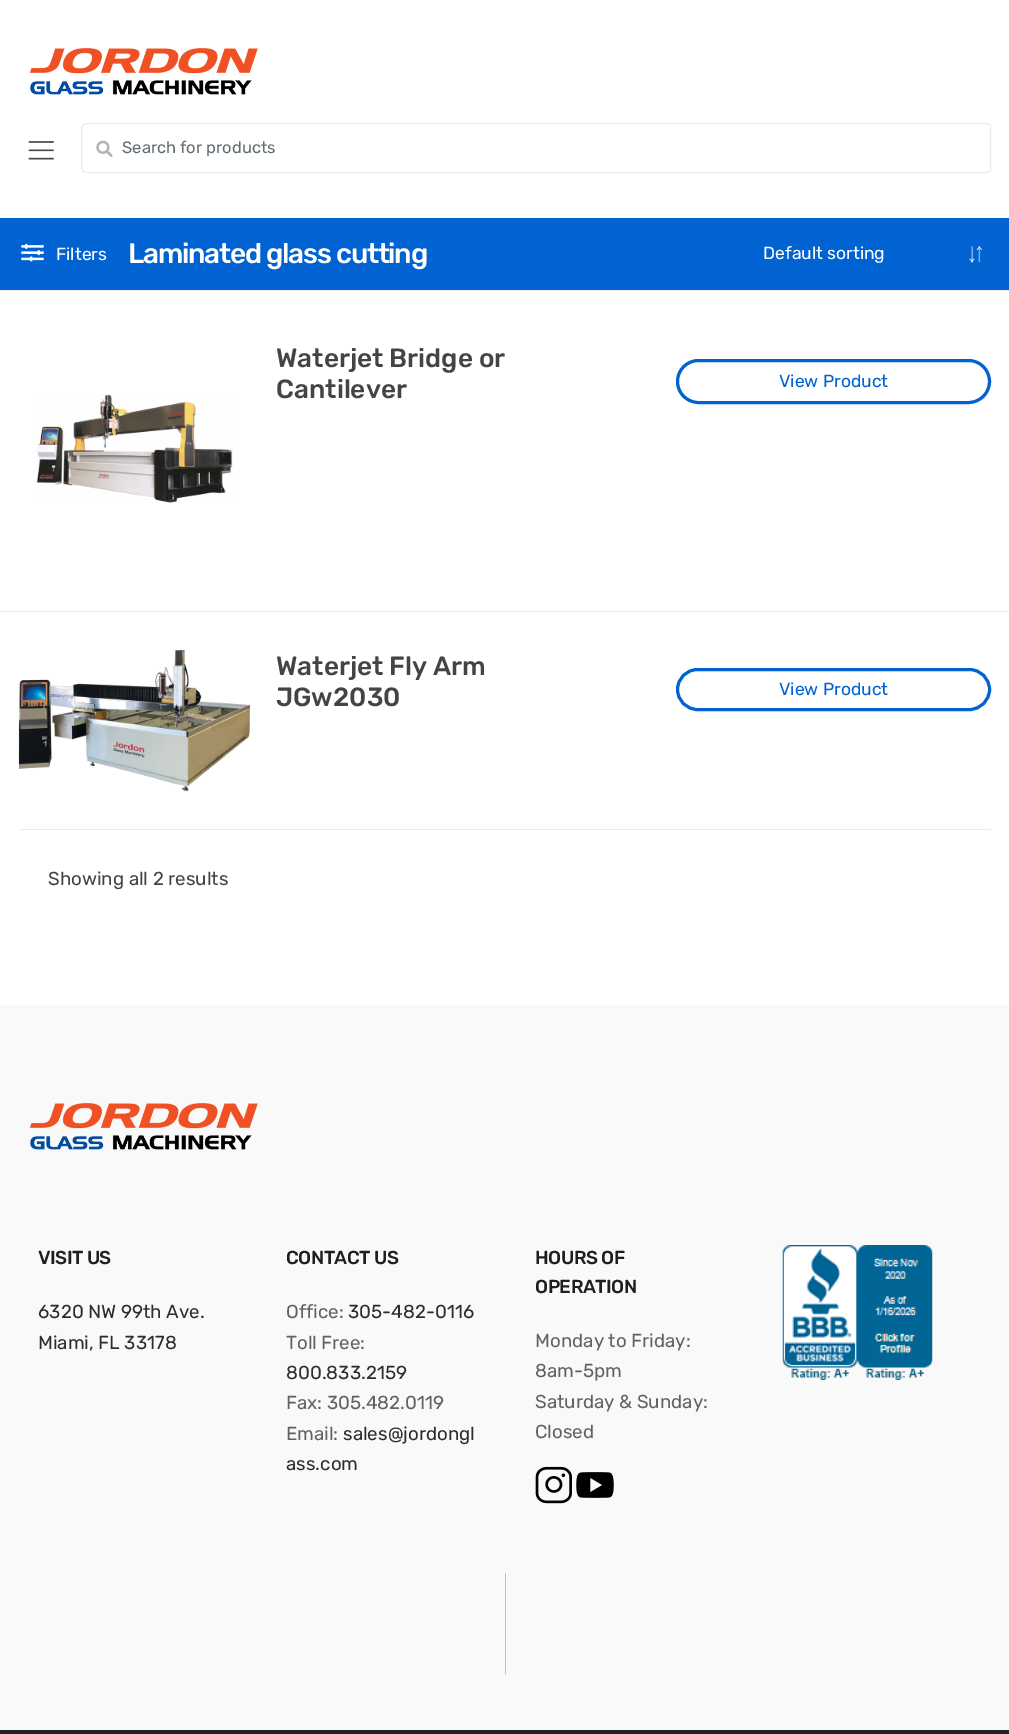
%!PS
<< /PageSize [1009 1734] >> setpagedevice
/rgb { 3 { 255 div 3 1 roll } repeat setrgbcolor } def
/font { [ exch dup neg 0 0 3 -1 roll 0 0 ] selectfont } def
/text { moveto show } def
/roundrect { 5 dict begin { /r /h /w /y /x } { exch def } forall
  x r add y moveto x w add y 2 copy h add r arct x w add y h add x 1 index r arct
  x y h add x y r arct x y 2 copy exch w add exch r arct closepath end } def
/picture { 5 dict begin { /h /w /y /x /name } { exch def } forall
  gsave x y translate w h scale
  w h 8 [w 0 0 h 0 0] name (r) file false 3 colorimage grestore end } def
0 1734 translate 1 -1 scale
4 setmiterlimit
255 255 255 rgb
0 0 1009 1734 rectfill
(img_01.rgb) 29 48 229 47 picture
(img_02.rgb) 28 141 26 19 picture
235 235 235 rgb
87 123.5 moveto 900 0 rlineto 2 0 3.5 1.5 3.5 3.5 rcurveto 0 42 rlineto 0 2 -1.5 3.5 -3.5 3.5 rcurveto -900 0 rlineto -3 0 -5.5 -2.5 -5.5 -5.5 rcurveto 0 -38 rlineto 0 -3 2.5 -5.5 5.5 -5.5 rcurveto closepath stroke
(img_03.rgb) 96 140 17 17 picture
0 99 209 rgb
0 218 1009 72 rectfill
235 235 235 rgb
0 290 1009 1 rectfill
(img_04.rgb) 21 243 23 19 picture
(img_05.rgb) 969 246 14 17 picture
0 99 209 rgb
3 setlinewidth
677.5 360.5 312 42 21 roundrect stroke
(img_06.rgb) 36 394 197 109 picture
235 235 235 rgb
0 611 1009 1 rectfill
(img_07.rgb) 18 650 232 142 picture
0 99 209 rgb
677.5 669.5 312 40 20 roundrect stroke
235 235 235 rgb
19 829 972 1 rectfill
249 249 249 rgb
0 1005 1009 725 rectfill
(img_08.rgb) 29 1103 229 47 picture
(img_09.rgb) 535 1466 37 38 picture
(img_10.rgb) 576 1472 38 26 picture
(img_11.rgb) 782 1245 151 135 picture
190 190 190 rgb
505 1573 1 101 rectfill
34 34 34 rgb
0 1730 1009 4 rectfill
/Rubik-Regular 16.5 font
99 108 114 rgb
(Search for products) 122 153 text
/Rubik-Regular 17.5 font
255 255 255 rgb
(Filters) 56 260 text
/Rubik-Medium 28.1 font
128 263 moveto -1.25 0 (Laminated glass cutting) ashow
/Rubik-Regular 17.5 font
(Default sorting) 763 259 text
/Rubik-Medium 26.25 font
68 68 68 rgb
(Waterjet Bridge or) 276 367 text
(Cantilever) 276 398 text
/Rubik-Regular 17.5 font
0 99 209 rgb
(View Product) 779 387 text
/Rubik-Medium 26.25 font
68 68 68 rgb
(Waterjet Fly Arm) 276 675 text
(JGw2030) 276 706 text
/Rubik-Regular 17.5 font
0 99 209 rgb
(View Product) 779 695 text
/Rubik-Regular 18.75 font
68 68 68 rgb
(Showing all 2 results) 48 885 text
/Rubik-Medium 18.75 font
31 31 31 rgb
38 1264 moveto -0.5 0 (VISIT US) ashow
/Rubik-Regular 18.75 font
44 45 51 rgb
(6320 NW 99th Ave.) 38 1318 text
(Miami, FL 33178) 38 1349 text
/Rubik-Medium 18.75 font
31 31 31 rgb
286 1264 moveto -0.5 0 (CONTACT US) ashow
/Rubik-Regular 18.75 font
98 98 98 rgb
(Office:) 286 1318 text
44 45 51 rgb
(305-482-0116) 348 1318 text
98 98 98 rgb
(Toll Free:) 286 1349 text
44 45 51 rgb
(800.833.2159) 286 1379 text
98 98 98 rgb
(Fax: 305.482.0119) 286 1409 text
(Email:) 286 1440 text
44 45 51 rgb
(sales@jordongl) 343 1440 text
(ass.com) 286 1470 text
/Rubik-Medium 18.75 font
31 31 31 rgb
535 1264 moveto -0.5 0 (HOURS OF) ashow
535 1293 moveto -0.5 0 (OPERATION) ashow
/Rubik-Regular 18.75 font
98 98 98 rgb
(Monday to Friday:) 535 1347 text
(8am-5pm) 535 1377 text
(Saturday & Sunday:) 535 1408 text
(Closed) 535 1438 text
showpage
